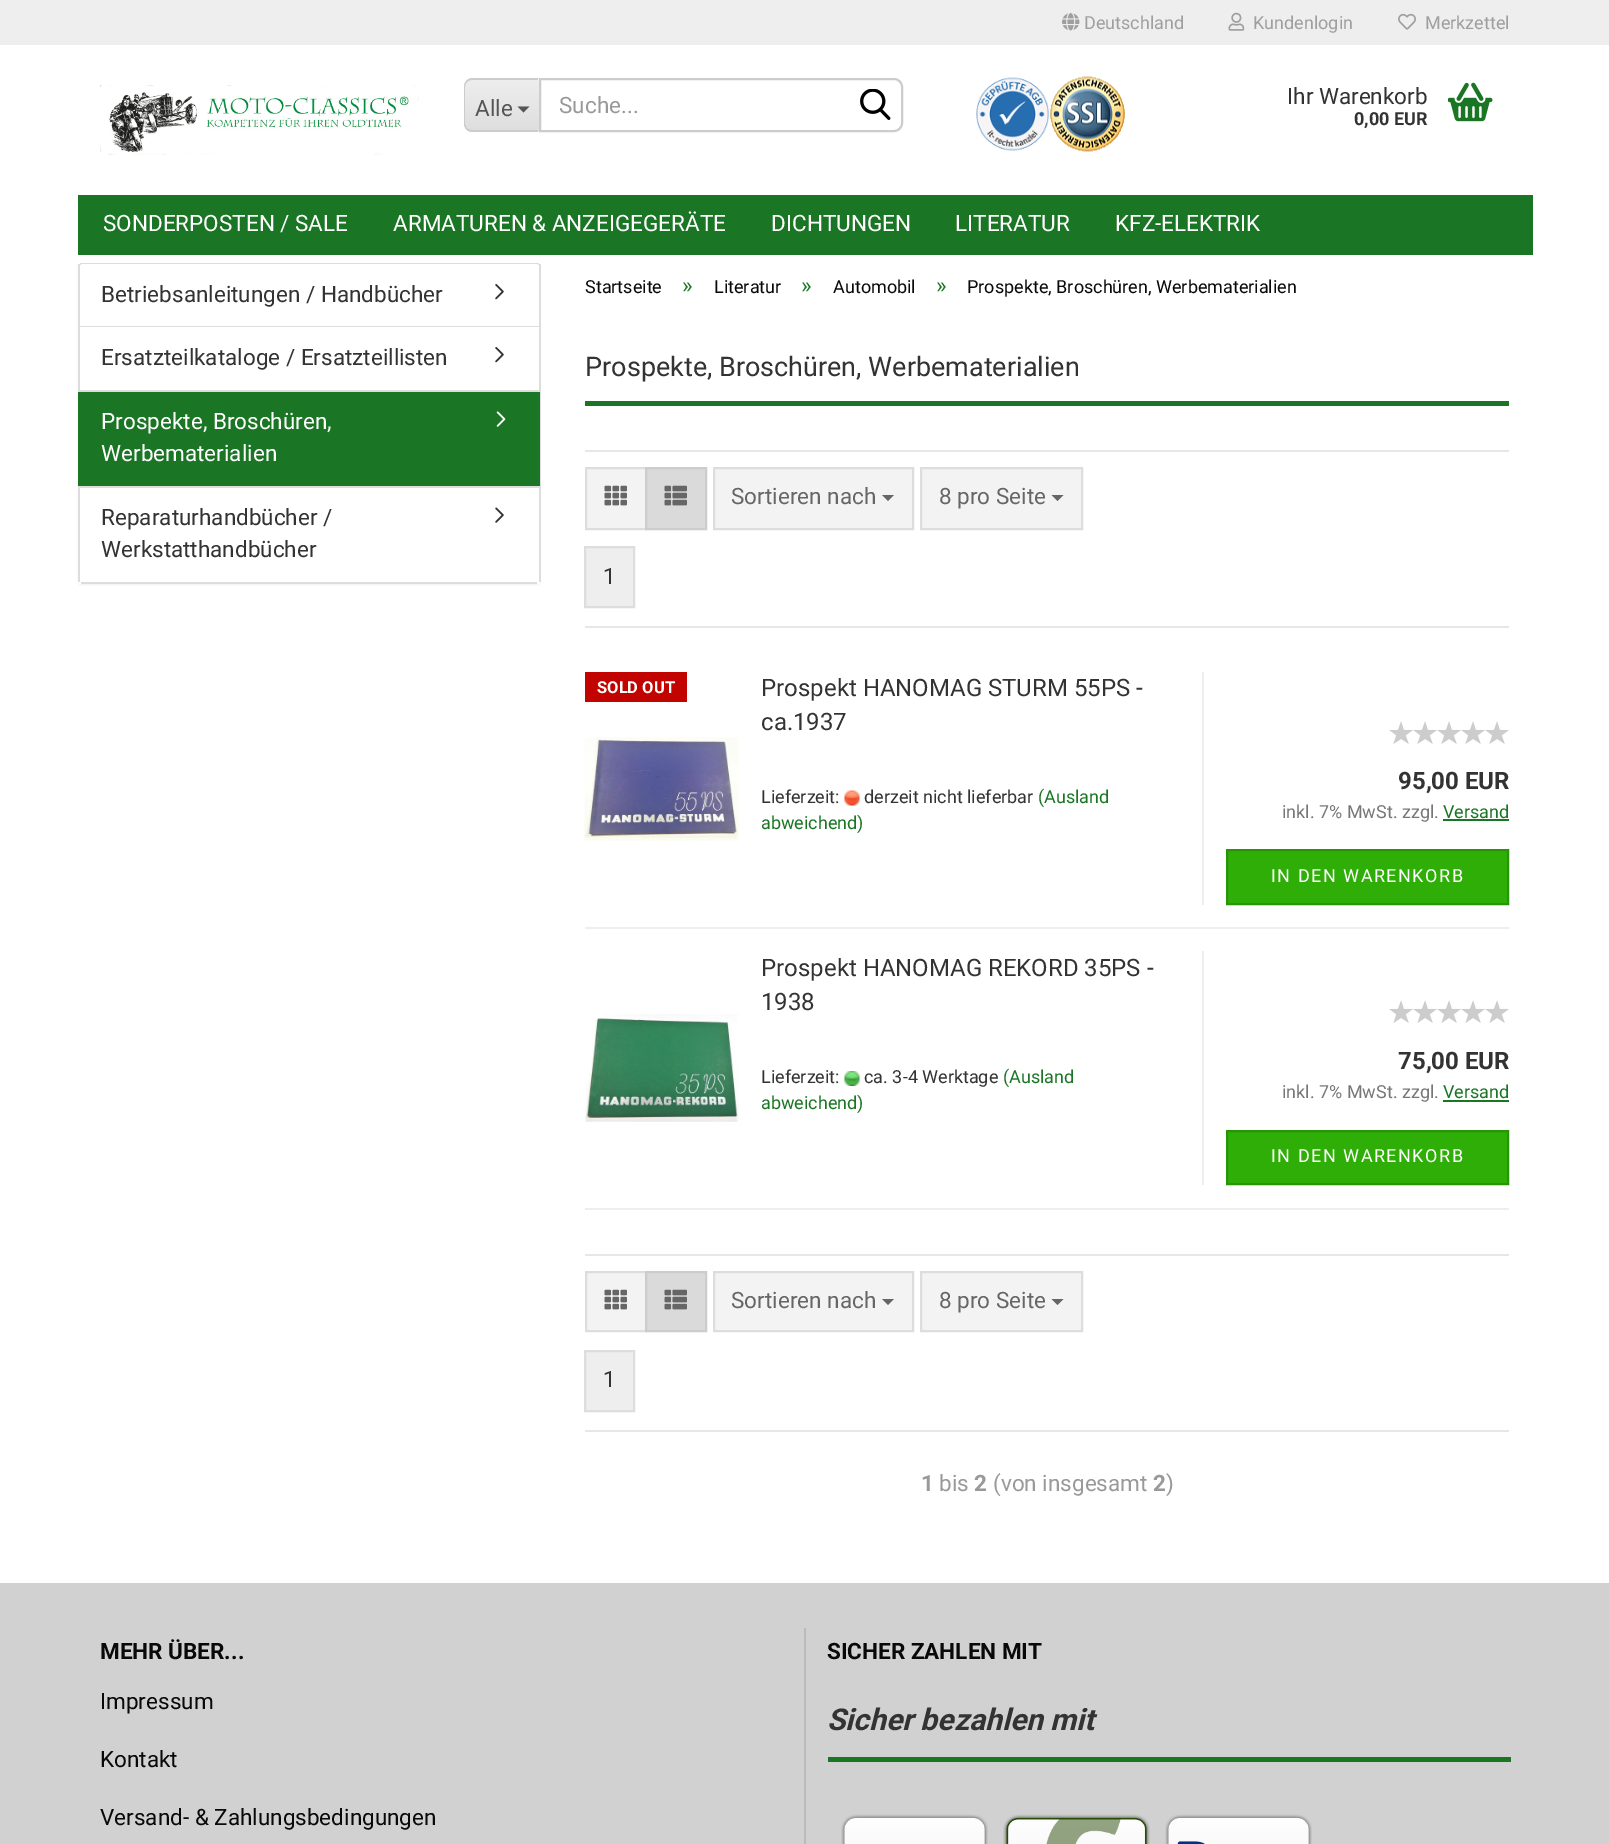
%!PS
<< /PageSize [1609 1844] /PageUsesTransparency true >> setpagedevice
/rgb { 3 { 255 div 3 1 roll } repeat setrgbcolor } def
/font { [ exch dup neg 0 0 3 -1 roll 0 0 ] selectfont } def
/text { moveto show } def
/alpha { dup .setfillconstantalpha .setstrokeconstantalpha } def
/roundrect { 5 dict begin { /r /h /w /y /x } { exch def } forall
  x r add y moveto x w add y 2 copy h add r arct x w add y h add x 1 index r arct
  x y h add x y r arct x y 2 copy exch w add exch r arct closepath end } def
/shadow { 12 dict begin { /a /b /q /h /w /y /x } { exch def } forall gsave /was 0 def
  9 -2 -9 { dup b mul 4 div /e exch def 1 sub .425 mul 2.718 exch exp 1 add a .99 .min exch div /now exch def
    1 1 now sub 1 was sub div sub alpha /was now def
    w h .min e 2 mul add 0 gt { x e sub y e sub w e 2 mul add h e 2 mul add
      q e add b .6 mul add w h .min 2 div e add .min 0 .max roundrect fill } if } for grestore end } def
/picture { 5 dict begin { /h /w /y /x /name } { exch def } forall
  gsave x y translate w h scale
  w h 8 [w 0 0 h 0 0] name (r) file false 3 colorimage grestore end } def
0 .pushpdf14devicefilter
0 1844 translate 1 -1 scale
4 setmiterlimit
255 255 255 rgb
0 0 1609 1844 rectfill
238 238 238 rgb
0 0 1609 45 rectfill
(img_01.rgb) 1062 13 18 18 picture
(img_02.rgb) 1228 12 17 19 picture
(img_03.rgb) 1398 13 18 17 picture
(img_04.rgb) 100 85 319 70 picture
243 243 243 rgb
473 78 moveto 66 0 rlineto 0 54 rlineto -66 0 rlineto -5 0 -9 -4 -9 -9 rcurveto 0 -36 rlineto 0 -5 4 -9 9 -9 rcurveto closepath fill
gsave
473 78 moveto 66 0 rlineto 0 54 rlineto -66 0 rlineto -5 0 -9 -4 -9 -9 rcurveto 0 -36 rlineto 0 -5 4 -9 9 -9 rcurveto closepath clip newpath
gsave 464 80 moveto 75 0 rlineto 0 51 rlineto -75 0 rlineto closepath clip newpath
<< /ShadingType 2 /ColorSpace /DeviceRGB /Coords [502 80 502 131] /Extend [true true] /Function << /FunctionType 2 /Domain [0 1] /C0 [0.933 0.933 0.933] /C1 [0.871 0.871 0.871] /N 1 >> >> shfill grestore
grestore
204 204 204 rgb
472 78 moveto 66 0 rlineto 0 54 rlineto -66 0 rlineto -4 0 -8 -4 -8 -9 rcurveto 0 -36 rlineto 0 -5 4 -9 8 -9 rcurveto closepath 472 80 moveto 66 0 rlineto 0 50 rlineto -66 0 rlineto -4 0 -7 -3 -7 -7 rcurveto 0 -36 rlineto 0 -4 3 -7 7 -7 rcurveto closepath eofill
85 85 85 rgb
517.5 106.5 moveto 12 0 rlineto -6 6 rlineto closepath fill
204 204 204 rgb
2 setlinewidth
540 79 moveto 354 0 rlineto 4.5 0 8 3.5 8 8 rcurveto 0 36 rlineto 0 4.5 -3.5 8 -8 8 rcurveto -354 0 rlineto closepath stroke
(img_05.rgb) 860 89 31 31 picture
(img_06.rgb) 976 77 74 74 picture
(img_07.rgb) 1050 76 75 76 picture
(img_08.rgb) 1448 82 45 40 picture
26 118 36 rgb
78 195 1455 60 rectfill
0 0 0 rgb
78 264 462 321 3 1 0.05 shadow
255 255 255 rgb
78 263 462 321 3 roundrect fill
221 221 221 rgb
80 263 459 2 rectfill
539 264 2 318 rectfill
78 264 2 318 rectfill
80 326 459 1 rectfill
255 255 255 rgb
83 264 moveto 453 0 rlineto 1.5 0 3 1.5 3 3 rcurveto 0 59 rlineto -459 0 rlineto 0 -59 rlineto 0 -1.5 1.5 -3 3 -3 rcurveto closepath fill
(img_09.rgb) 495 284 9 16 picture
221 221 221 rgb
80 390 459 2 rectfill
(img_09.rgb) 495 347 9 16 picture
80 486 459 2 rectfill
26 118 36 rgb
78 392 462 94 rectfill
(img_10.rgb) 496 411 10 16 picture
221 221 221 rgb
81 582 456 2 rectfill
(img_11.rgb) 495 507 9 16 picture
26 118 36 rgb
585 401 924 5 rectfill
231 231 231 rgb
585 450 924 2 rectfill
585 626 924 2 rectfill
243 243 243 rgb
586 468 moveto 60 0 rlineto 0 61 rlineto -60 0 rlineto closepath gsave fill grestore
221 221 221 rgb
stroke
(img_12.rgb) 604 485 23 21 picture
218 218 218 rgb
646 468 moveto 60 0 rlineto 0 61 rlineto -60 0 rlineto closepath gsave fill grestore
204 204 204 rgb
stroke
(img_13.rgb) 664 485 23 21 picture
243 243 243 rgb
714 468 moveto 199 0 rlineto 0 61 rlineto -199 0 rlineto closepath gsave fill grestore
221 221 221 rgb
stroke
102 102 102 rgb
882 495 moveto 12 0 rlineto -6 6 rlineto closepath fill
243 243 243 rgb
921 468 moveto 161 0 rlineto 0 61 rlineto -161 0 rlineto closepath gsave fill grestore
221 221 221 rgb
stroke
102 102 102 rgb
1051.5 495 moveto 12 0 rlineto -6 6 rlineto closepath fill
238 238 238 rgb
585 547 moveto 49 0 rlineto 0 60 rlineto -49 0 rlineto closepath gsave fill grestore
221 221 221 rgb
stroke
238 238 238 rgb
585 927 924 2 rectfill
194 4 0 rgb
585 672 102 30 rectfill
(img_14.rgb) 584 737 155 104 picture
(img_15.rgb) 844 790 16 16 picture
238 238 238 rgb
1202 672 2 233 rectfill
(img_16.rgb) 1389 721 24 23 picture
(img_16.rgb) 1413 721 24 23 picture
(img_16.rgb) 1437 721 24 23 picture
(img_16.rgb) 1461 721 24 23 picture
(img_16.rgb) 1485 721 24 23 picture
26 118 36 rgb
1443 819 66 2 rectfill
46 174 6 rgb
1227 850 moveto 281 0 rlineto 0 54 rlineto -281 0 rlineto closepath gsave fill grestore
39 149 5 rgb
stroke
238 238 238 rgb
585 1208 924 2 rectfill
(img_17.rgb) 585 1014 154 108 picture
(img_18.rgb) 844 1071 16 15 picture
1202 951 2 234 rectfill
(img_16.rgb) 1389 1000 24 23 picture
(img_16.rgb) 1413 1000 24 23 picture
(img_16.rgb) 1437 1000 24 23 picture
(img_16.rgb) 1461 1000 24 23 picture
(img_16.rgb) 1485 1000 24 23 picture
26 118 36 rgb
1443 1100 66 2 rectfill
46 174 6 rgb
1227 1131 moveto 281 0 rlineto 0 53 rlineto -281 0 rlineto closepath gsave fill grestore
39 149 5 rgb
stroke
231 231 231 rgb
585 1254 924 2 rectfill
585 1430 924 2 rectfill
243 243 243 rgb
586 1272 moveto 60 0 rlineto 0 59 rlineto -60 0 rlineto closepath gsave fill grestore
221 221 221 rgb
stroke
(img_12.rgb) 604 1289 23 21 picture
218 218 218 rgb
646 1272 moveto 60 0 rlineto 0 59 rlineto -60 0 rlineto closepath gsave fill grestore
204 204 204 rgb
stroke
(img_13.rgb) 664 1289 23 21 picture
243 243 243 rgb
714 1272 moveto 199 0 rlineto 0 59 rlineto -199 0 rlineto closepath gsave fill grestore
221 221 221 rgb
stroke
102 102 102 rgb
882 1299 moveto 12 0 rlineto -6 6 rlineto closepath fill
243 243 243 rgb
921 1272 moveto 161 0 rlineto 0 59 rlineto -161 0 rlineto closepath gsave fill grestore
221 221 221 rgb
stroke
102 102 102 rgb
1051.5 1299 moveto 12 0 rlineto -6 6 rlineto closepath fill
238 238 238 rgb
585 1351 moveto 49 0 rlineto 0 60 rlineto -49 0 rlineto closepath gsave fill grestore
221 221 221 rgb
stroke
209 209 209 rgb
0 1583 1609 261 rectfill
187 187 187 rgb
804 1628 2 216 rectfill
26 118 36 rgb
828 1757 683 5 rectfill
(img_19.rgb) 841 1814 147 30 picture
(img_20.rgb) 1003 1814 147 30 picture
(img_21.rgb) 1165 1814 147 30 picture
/Roboto-Regular 18 font
159 159 159 rgb
(Deutschland) 1084 29 text
(Kundenlogin) 1253 29 text
(Merkzettel) 1425 29 text
/Roboto-Regular 22.5 font
85 85 85 rgb
(Alle) 475 116 text
153 153 153 rgb
(Suche...) 559 113 text
51 51 51 rgb
(Ihr Warenkorb) 1287 104 text
/Roboto-Bold 18 font
(0,00 EUR) 1354 125 text
/Roboto-Regular 22.5 font
255 255 255 rgb
(SONDERPOSTEN / SALE) 103 231 text
(ARMATUREN & ANZEIGEGERÄTE) 393 231 text
(DICHTUNGEN) 771 231 text
(LITERATUR) 955 231 text
(KFZ-ELEKTRIK) 1115 231 text
51 51 51 rgb
(Betriebsanleitungen / Handbücher) 101 302 text
(Ersatzteilkataloge / Ersatzteillisten) 101 365 text
255 255 255 rgb
(Prospekte, Broschüren,) 101 429 text
(Werbematerialien) 101 461 text
51 51 51 rgb
(Reparaturhandbücher /) 101 525 text
(Werkstatthandbücher) 101 557 text
/Roboto-Regular 18 font
9 9 9 rgb
(Startseite) 585 293 text
/Roboto-Regular 22.5 font
26 118 36 rgb
(») 682 293 text
/Roboto-Regular 18 font
9 9 9 rgb
(Literatur) 714 293 text
/Roboto-Regular 22.5 font
26 118 36 rgb
(») 801 293 text
/Roboto-Regular 18 font
9 9 9 rgb
(Automobil) 833 293 text
/Roboto-Regular 22.5 font
26 118 36 rgb
(») 936 293 text
/Roboto-Regular 18 font
9 9 9 rgb
(Prospekte, Broschüren, Werbematerialien) 967 293 text
/Roboto-Regular 27 font
51 51 51 rgb
(Prospekte, Broschüren, Werbematerialien) 585 376 text
/Roboto-Regular 22.5 font
102 102 102 rgb
(Sortieren nach) 731 504 text
(8 pro Seite) 939 504 text
51 51 51 rgb
(1) 603 584 text
/Roboto-Bold 16.5 font
255 255 255 rgb
(SOLD OUT) 597 693 text
/Roboto-Regular 24 font
51 51 51 rgb
(Prospekt HANOMAG STURM 55PS -) 761 696 text
(ca.1937) 761 730 text
/Roboto-Regular 18 font
(Lieferzeit:) 761 803 text
(derzeit nicht lieferbar) 864 803 text
26 118 36 rgb
(\(Ausland) 1038 803 text
(abweichend\)) 761 829 text
/Roboto-Bold 24 font
51 51 51 rgb
(95,00 EUR) 1398 789 text
/Roboto-Regular 18 font
119 119 119 rgb
(inkl. 7% MwSt. zzgl.) 1282 818 text
26 118 36 rgb
(Versand) 1443 818 text
255 255 255 rgb
1271 882 moveto 1.5 0 (IN DEN WARENKORB) ashow
/Roboto-Regular 24 font
51 51 51 rgb
(Prospekt HANOMAG REKORD 35PS -) 761 976 text
(1938) 761 1010 text
/Roboto-Regular 18 font
(Lieferzeit:) 761 1083 text
(ca. 3-4 Werktage) 864 1083 text
26 118 36 rgb
(\(Ausland) 1003 1083 text
(abweichend\)) 761 1109 text
/Roboto-Bold 24 font
51 51 51 rgb
(75,00 EUR) 1398 1069 text
/Roboto-Regular 18 font
119 119 119 rgb
(inkl. 7% MwSt. zzgl.) 1282 1098 text
26 118 36 rgb
(Versand) 1443 1098 text
255 255 255 rgb
1271 1162 moveto 1.5 0 (IN DEN WARENKORB) ashow
/Roboto-Regular 22.5 font
102 102 102 rgb
(Sortieren nach) 731 1308 text
(8 pro Seite) 939 1308 text
51 51 51 rgb
(1) 603 1387 text
/Roboto-Bold 22.5 font
153 153 153 rgb
(1) 921 1491 text
/Roboto-Regular 22.5 font
(bis) 939 1491 text
/Roboto-Bold 22.5 font
(2) 974 1491 text
/Roboto-Regular 22.5 font
(\(von insgesamt) 993 1491 text
/Roboto-Bold 22.5 font
(2) 1153 1491 text
/Roboto-Regular 22.5 font
(\)) 1166 1491 text
/Roboto-Bold 22.5 font
9 9 9 rgb
(MEHR ÜBER...) 100 1659 text
/Roboto-Regular 22.5 font
(Impressum) 100 1709 text
(Kontakt) 100 1767 text
(Versand- & Zahlungsbedingungen) 100 1825 text
/Roboto-Bold 22.5 font
(SICHER ZAHLEN MIT) 827 1659 text
/Roboto-BoldItalic 30 font
51 51 51 rgb
(Sicher bezahlen mit) 827 1730 text
.poppdf14devicefilter showpage
